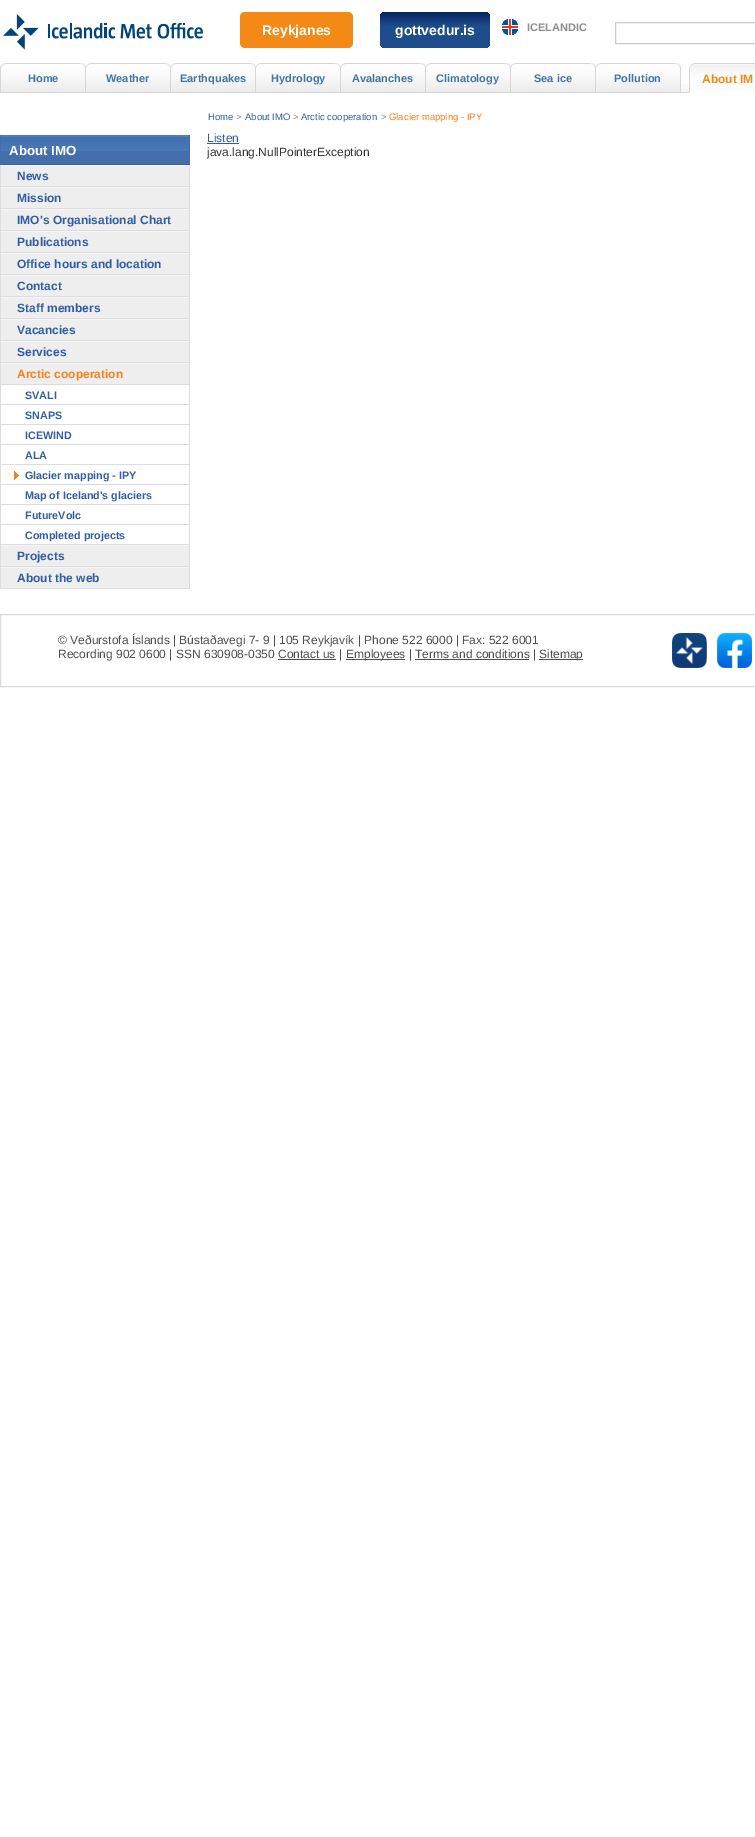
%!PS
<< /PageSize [755 1837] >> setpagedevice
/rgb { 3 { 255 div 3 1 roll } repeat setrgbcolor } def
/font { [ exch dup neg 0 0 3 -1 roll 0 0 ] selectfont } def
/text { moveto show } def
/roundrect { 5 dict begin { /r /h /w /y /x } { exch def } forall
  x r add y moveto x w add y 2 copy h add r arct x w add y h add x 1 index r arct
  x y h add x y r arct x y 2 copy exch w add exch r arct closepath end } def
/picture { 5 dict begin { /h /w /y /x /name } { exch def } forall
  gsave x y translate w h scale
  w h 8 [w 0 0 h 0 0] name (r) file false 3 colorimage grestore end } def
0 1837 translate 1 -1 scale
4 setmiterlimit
255 255 255 rgb
0 0 755 1837 rectfill
(img_01.rgb) 0 84 689 9 picture
(img_02.rgb) 3 14 200 36 picture
244 137 22 rgb
240 12 113 36 5 roundrect fill
gsave 380 12 110 36 5 roundrect clip newpath
<< /ShadingType 2 /ColorSpace /DeviceRGB /Coords [435 48 435 12] /Extend [true true] /Function << /FunctionType 3 /Domain [0 1] /Functions [<< /FunctionType 2 /Domain [0 1] /C0 [0.118 0.302 0.545] /C1 [0.118 0.302 0.545] /N 1 >> << /FunctionType 2 /Domain [0 1] /C0 [0.118 0.302 0.545] /C1 [0.027 0.141 0.376] /N 1 >>] /Bounds [0.6] /Encode [0 1 0 1] >> >> shfill grestore
(img_03.rgb) 502 19 16 16 picture
204 204 204 rgb
615.5 22.5 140 21 rectstroke
221 221 221 rgb
0.5 614.5 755 72 rectstroke
78 78 78 rgb
346 659 59 1 rectfill
539 659 44 1 rectfill
278 659 58 1 rectfill
415 659 114 1 rectfill
(img_04.rgb) 672 633 35 35 picture
(img_05.rgb) 717 633 35 35 picture
(img_06.rgb) 0 63 85 29 picture
(img_07.rgb) 80 63 5 6 picture
(img_06.rgb) 85 63 85 29 picture
(img_07.rgb) 165 63 5 6 picture
(img_06.rgb) 170 63 85 29 picture
(img_07.rgb) 250 63 5 6 picture
(img_06.rgb) 255 63 85 29 picture
(img_07.rgb) 335 63 5 6 picture
(img_06.rgb) 340 63 85 29 picture
(img_07.rgb) 420 63 5 6 picture
(img_06.rgb) 425 63 85 29 picture
(img_07.rgb) 505 63 5 6 picture
(img_06.rgb) 510 63 85 29 picture
(img_07.rgb) 590 63 5 6 picture
(img_06.rgb) 595 63 85 29 picture
(img_08.rgb) 675 63 6 29 picture
(img_09.rgb) 689 63 66 30 picture
238 238 238 rgb
1 166 188 422 rectfill
221 221 221 rgb
189 165 1 424 rectfill
0 165 1 424 rectfill
68 109 172 rgb
1 151 188 13 rectfill
(img_10.rgb) 1 135 188 16 picture
189 135 1 30 rectfill
61 98 164 rgb
0 164 190 1 rectfill
68 109 172 rgb
0 135 1 30 rectfill
246 246 246 rgb
1 165 188 1 rectfill
221 221 221 rgb
1 186 188 1 rectfill
246 246 246 rgb
1 187 188 1 rectfill
221 221 221 rgb
1 208 188 1 rectfill
246 246 246 rgb
1 209 188 1 rectfill
221 221 221 rgb
1 230 188 1 rectfill
246 246 246 rgb
1 231 188 1 rectfill
221 221 221 rgb
1 252 188 1 rectfill
246 246 246 rgb
1 253 188 1 rectfill
221 221 221 rgb
1 274 188 1 rectfill
246 246 246 rgb
1 275 188 1 rectfill
221 221 221 rgb
1 296 188 1 rectfill
246 246 246 rgb
1 297 188 1 rectfill
221 221 221 rgb
1 318 188 1 rectfill
246 246 246 rgb
1 319 188 1 rectfill
221 221 221 rgb
1 340 188 1 rectfill
246 246 246 rgb
1 341 188 1 rectfill
221 221 221 rgb
1 362 188 1 rectfill
246 246 246 rgb
1 363 188 1 rectfill
221 221 221 rgb
1 384 188 1 rectfill
255 255 255 rgb
1 385 188 159 rectfill
221 221 221 rgb
1 404 188 1 rectfill
1 424 188 1 rectfill
1 444 188 1 rectfill
1 464 188 1 rectfill
(img_11.rgb) 14 471 5 9 picture
1 484 188 1 rectfill
1 504 188 1 rectfill
1 524 188 1 rectfill
1 544 188 1 rectfill
246 246 246 rgb
1 545 188 1 rectfill
221 221 221 rgb
1 566 188 1 rectfill
246 246 246 rgb
1 567 188 1 rectfill
221 221 221 rgb
1 588 188 1 rectfill
48 93 163 rgb
207 143 32 1 rectfill
/LiberationSans-Bold 14 font
255 255 255 rgb
(Reykjanes) 262 35 text
(gottvedur.is) 395 35 text
/LiberationSans-Bold 11 font
142 142 142 rgb
(ICELANDIC) 527 31 text
/LiberationSans-Regular 12 font
78 78 78 rgb
(© Veðurstofa Íslands | Bústaðavegi 7- 9 | 105 Reykjavík | Phone 522 6000 | Fax: 522 6001) 58 644 text
(Recording 902 0600 | SSN 630908-0350 Contact us |) 58 658 text
(Employees | Terms and conditions |) 346 658 text
(Sitemap) 539 658 text
/LiberationSans-Bold 11 font
67 116 168 rgb
(Home) 28 82 text
(Weather) 106 82 text
(Earthquakes) 180 82 text
(Hydrology) 271 82 text
(Avalanches) 352 82 text
(Climatology) 436 82 text
(Sea ice) 534 82 text
(Pollution) 614 82 text
/LiberationSans-Bold 12 font
243 137 21 rgb
(About IM) 702 83 text
/LiberationSans-Regular 9.5 font
48 93 163 rgb
(Home) 208 120 text
136 136 136 rgb
(>) 236 120 text
48 93 163 rgb
(About IMO) 245 120 text
136 136 136 rgb
(>) 293 120 text
48 93 163 rgb
(Arctic cooperation) 301 120 text
136 136 136 rgb
(>) 381 120 text
245 130 31 rgb
(Glacier mapping - IPY) 389 120 text
/LiberationSans-Bold 13.25 font
255 255 255 rgb
(About IMO) 9 155 text
/LiberationSans-Bold 12 font
48 93 163 rgb
(News) 17 180 text
(Mission) 17 202 text
(IMO's Organisational Chart) 17 224 text
(Publications) 17 246 text
(Office hours and location) 17 268 text
(Contact) 17 290 text
(Staff members) 17 312 text
(Vacancies) 17 334 text
(Services) 17 356 text
245 130 31 rgb
(Arctic cooperation) 17 378 text
/LiberationSans-Bold 10.75 font
48 93 163 rgb
(SVALI) 25 399 text
(SNAPS) 25 419 text
(ICEWIND) 25 439 text
(ALA) 25 459 text
(Glacier mapping - IPY) 25 479 text
(Map of Iceland's glaciers) 25 499 text
(FutureVolc) 25 519 text
(Completed projects) 25 539 text
/LiberationSans-Bold 12 font
(Projects) 17 560 text
(About the web) 17 582 text
/LiberationSans-Regular 12 font
(Listen) 207 142 text
51 51 51 rgb
(java.lang.NullPointerException) 207 156 text
showpage
